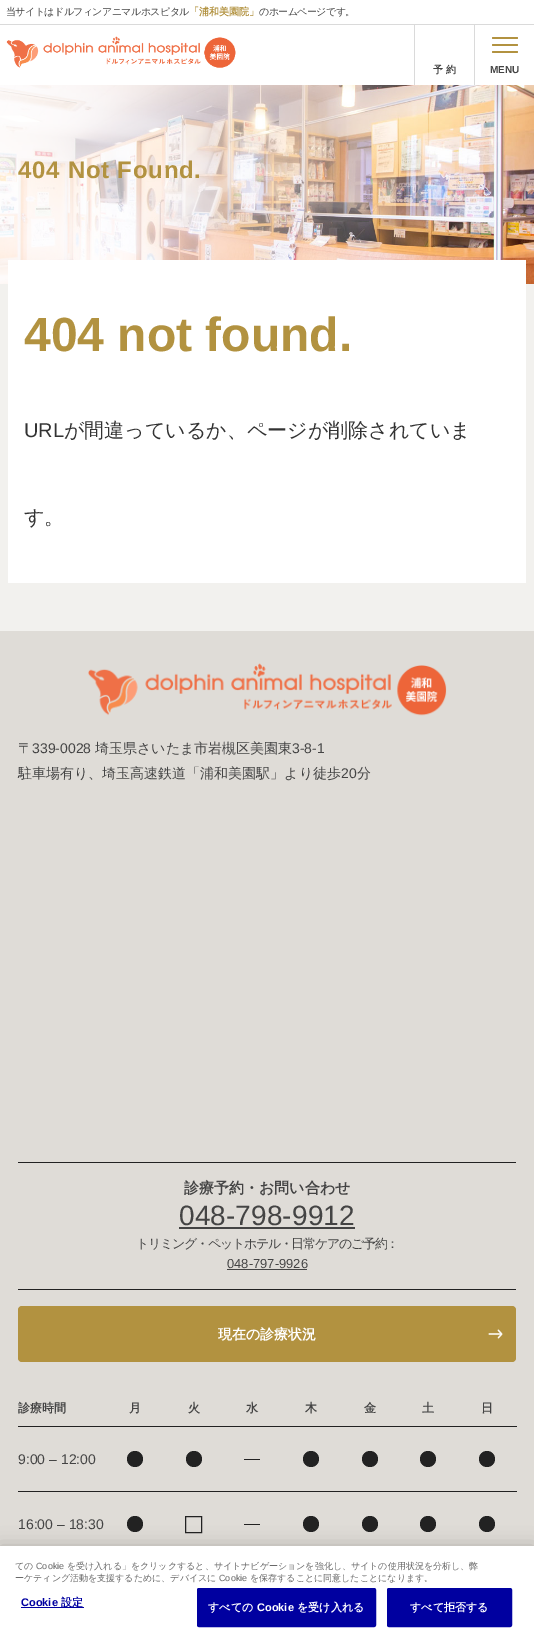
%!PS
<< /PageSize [534 1639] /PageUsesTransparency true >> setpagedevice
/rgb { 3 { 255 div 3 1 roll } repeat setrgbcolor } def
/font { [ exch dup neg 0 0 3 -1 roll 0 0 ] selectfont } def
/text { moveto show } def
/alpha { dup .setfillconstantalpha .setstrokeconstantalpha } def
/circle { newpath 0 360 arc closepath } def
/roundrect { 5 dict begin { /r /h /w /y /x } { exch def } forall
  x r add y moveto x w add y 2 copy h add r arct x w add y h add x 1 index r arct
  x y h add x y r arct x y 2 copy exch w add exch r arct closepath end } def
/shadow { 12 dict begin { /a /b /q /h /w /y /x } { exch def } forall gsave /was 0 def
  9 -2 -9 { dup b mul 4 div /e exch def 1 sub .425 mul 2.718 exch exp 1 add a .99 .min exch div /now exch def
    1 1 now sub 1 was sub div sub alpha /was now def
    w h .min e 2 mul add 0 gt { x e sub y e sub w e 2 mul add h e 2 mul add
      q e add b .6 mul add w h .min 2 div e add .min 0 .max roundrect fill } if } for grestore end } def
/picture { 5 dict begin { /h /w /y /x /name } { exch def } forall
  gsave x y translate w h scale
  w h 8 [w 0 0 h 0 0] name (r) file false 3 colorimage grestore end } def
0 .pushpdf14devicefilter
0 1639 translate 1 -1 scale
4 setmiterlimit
242 241 238 rgb
0 0 534 1639 rectfill
255 255 255 rgb
0 0 534 85 rectfill
218 218 218 rgb
0 24 534 1 rectfill
(img_01.rgb) 6 36 230 32 picture
414 25 1 60 rectfill
474 25 1 60 rectfill
178 146 64 rgb
492 37 26 2 1 roundrect fill
492 44 26 2 1 roundrect fill
492 51 26 2 1 roundrect fill
(img_02.rgb) 0 85 534 199 picture
255 255 255 rgb
8 260 518 323 rectfill
223 220 215 rgb
0 631 534 915 rectfill
(img_03.rgb) 88 663 359 53 picture
34 34 34 rgb
18 1162 498 1 rectfill
18 1289 498 1 rectfill
68 68 68 rgb
179 1227 176 2 rectfill
227 1269 80 1 rectfill
178 146 64 rgb
18 1306 498 56 4 roundrect fill
(img_04.rgb) 488 1329 15 10 picture
34 34 34 rgb
18 1426 499 1 rectfill
18 1491 499 1 rectfill
487 1459 8 circle fill
135 1459 8 circle fill
194 1459 8 circle fill
244 1459 16 1 rectfill
311 1459 8 circle fill
370 1459 8 circle fill
428 1459 8 circle fill
135 1524 8 circle fill
185.5 1516.5 16 16 rectstroke
244 1524 16 1 rectfill
311 1524 8 circle fill
370 1524 8 circle fill
428 1524 8 circle fill
487 1524 8 circle fill
0 0 0 rgb
0 1546 534 93 0 9 0.2 shadow
255 255 255 rgb
0 1546 534 93 rectfill
0 0 160 rgb
21 1607 63 1 rectfill
197.5 1588.5 178 38 1.5 roundrect gsave fill grestore
stroke
387.5 1588.5 124 38 1.5 roundrect gsave fill grestore
stroke
/WenQuanYiZenHei-Medium 10 font
68 68 68 rgb
6 15 moveto -0.6 0 (当サイトはドルフィンアニマルホスピタル) ashow
/WenQuanYiZenHei-Bold 10 font
178 146 64 rgb
(「浦和美園院」) 189 15 text
/WenQuanYiZenHei-Medium 10 font
68 68 68 rgb
259 15 moveto -0.6 0 (のホームページです。) ashow
/WenQuanYiZenHei-Bold 10 font
(予 約) 433 73 text
/LiberationSans-Bold 10 font
(MENU) 490 73 text
/LiberationSans-Bold 24 font
178 146 64 rgb
18 178 moveto 0.75 0 (404 Not Found.) ashow
/LiberationSans-Bold 48 font
(404 not found.) 24 351 text
/LiberationSans-Regular 20 font
51 51 51 rgb
(URL) 24 437 text
/WenQuanYiZenHei-Medium 20 font
(が間違っているか、ページが削除されていま) 64 437 text
(す。) 24 524 text
/WenQuanYiZenHei-Medium 14 font
68 68 68 rgb
(〒) 18 753 text
/LiberationSans-Regular 14 font
(339-0028) 32 753 text
/WenQuanYiZenHei-Medium 14 font
(埼玉県さいたま市岩槻区美園東) 95 753 text
/LiberationSans-Regular 14 font
(3-8-1) 292 753 text
/WenQuanYiZenHei-Medium 14 font
(駐車場有り、埼玉高速鉄道「浦和美園駅」より徒歩) 18 778 text
/LiberationSans-Regular 14 font
(20) 341 778 text
/WenQuanYiZenHei-Medium 14 font
(分) 357 778 text
/WenQuanYiZenHei-Bold 15 font
(診療予約・お問い合わせ) 184 1193 text
/LiberationSans-Regular 28 font
179 1225 moveto 0.1 0 (048-798-9912) ashow
/WenQuanYiZenHei-Medium 13 font
136 1248 moveto -1.3 0 (トリミング・ペットホテル・日常ケアのご予約：) ashow
/LiberationSans-Regular 13 font
(048-797-9926) 227 1268 text
/WenQuanYiZenHei-Bold 14 font
255 255 255 rgb
(現在の診療状況) 218 1339 text
/WenQuanYiZenHei-Bold 12 font
68 68 68 rgb
(診療時間) 18 1412 text
(月) 129 1412 text
(火) 188 1412 text
(水) 246 1412 text
(木) 305 1412 text
(金) 364 1412 text
(土) 422 1412 text
(日) 481 1412 text
/LiberationSans-Regular 14 font
(9:00 – 12:00) 18 1464 text
(16:00 – 18:30) 18 1529 text
/WenQuanYiZenHei-Medium 9 font
105 105 105 rgb
(ての) 15 1569 text
/LiberationSans-Regular 9 font
(Cookie) 36 1569 text
/WenQuanYiZenHei-Medium 9 font
(を受け入れる」をクリックすると、サイトナビゲーションを強化し、サイトの使用状況を分析し、弊) 67 1569 text
(ーケティング活動を支援するために、デバイスに) 15 1581 text
/LiberationSans-Regular 9 font
(Cookie) 219 1581 text
/WenQuanYiZenHei-Medium 9 font
(を保存することに同意したことになります。) 250 1581 text
/LiberationSans-Bold 11 font
0 0 160 rgb
(Cookie) 21 1606 text
/WenQuanYiZenHei-Bold 11 font
(設定) 61 1606 text
255 255 255 rgb
(すべての) 208 1611 text
/LiberationSans-Bold 11 font
(Cookie) 257 1611 text
/WenQuanYiZenHei-Bold 11 font
(を受け入れる) 297 1611 text
(すべて拒否する) 410 1611 text
.poppdf14devicefilter showpage
